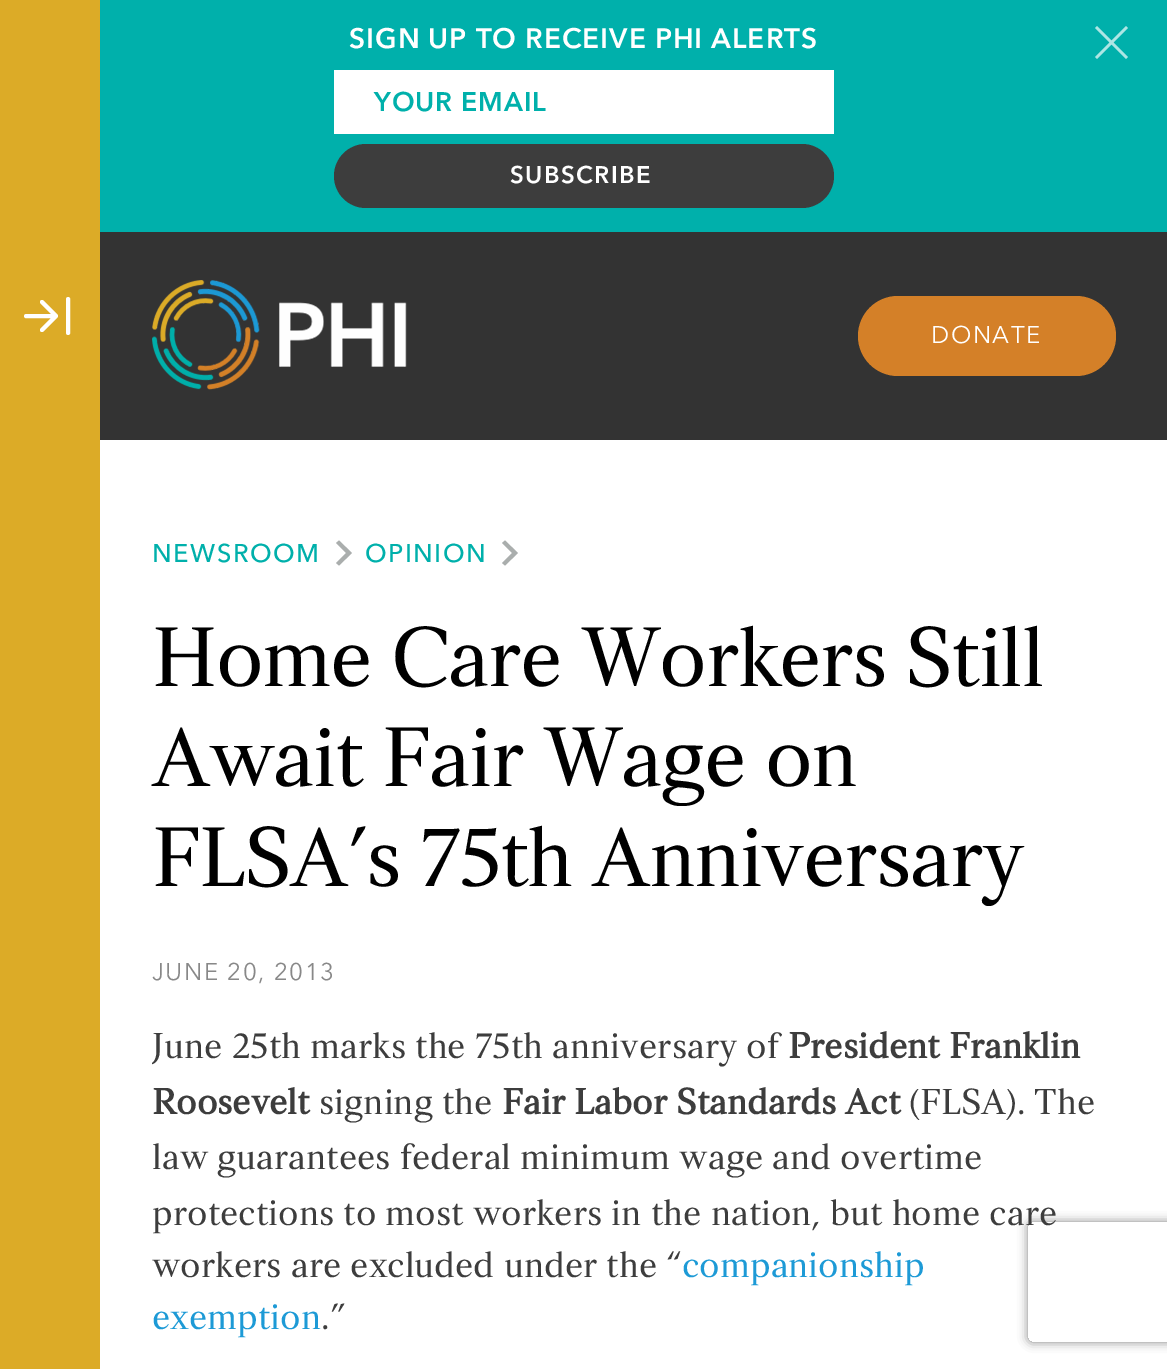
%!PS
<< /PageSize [1167 1369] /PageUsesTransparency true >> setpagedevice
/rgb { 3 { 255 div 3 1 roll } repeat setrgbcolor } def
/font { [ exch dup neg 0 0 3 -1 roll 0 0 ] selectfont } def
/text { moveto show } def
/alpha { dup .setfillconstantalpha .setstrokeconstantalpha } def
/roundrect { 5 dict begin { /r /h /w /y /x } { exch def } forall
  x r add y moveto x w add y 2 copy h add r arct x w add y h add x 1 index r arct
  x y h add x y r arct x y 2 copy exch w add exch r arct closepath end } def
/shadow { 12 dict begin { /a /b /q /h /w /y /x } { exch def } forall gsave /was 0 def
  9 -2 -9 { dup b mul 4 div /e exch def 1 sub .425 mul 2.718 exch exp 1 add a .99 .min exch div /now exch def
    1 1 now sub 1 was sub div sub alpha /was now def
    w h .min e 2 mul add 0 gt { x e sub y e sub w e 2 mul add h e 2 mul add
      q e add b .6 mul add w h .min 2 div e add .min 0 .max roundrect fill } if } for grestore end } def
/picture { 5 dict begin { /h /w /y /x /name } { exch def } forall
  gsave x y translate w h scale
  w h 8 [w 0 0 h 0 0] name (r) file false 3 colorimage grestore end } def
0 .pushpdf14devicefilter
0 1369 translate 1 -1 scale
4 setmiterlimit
51 51 51 rgb
0 0 1167 1369 rectfill
0 176 171 rgb
100 0 1067 232 rectfill
173 230 228 rgb
2.8 setlinewidth
1096 27 moveto 31 31 rlineto 1096 58 moveto 31 -31 rlineto stroke
255 255 255 rgb
334 70 500 64 rectfill
61 61 61 rgb
334 144 500 64 32 roundrect fill
220 171 39 rgb
0 0 100 1369 rectfill
255 255 255 rgb
4 setlinewidth
1 setlinecap
1 setlinejoin
26 316 moveto 30 0 rlineto 42 330 moveto 14 -14 rlineto -14 -14 rlineto 68 333 moveto 0 -34 rlineto stroke
(img_01.rgb) 152 280 255 110 picture
212 128 40 rgb
858 296 258 80 40 roundrect fill
255 255 255 rgb
100 440 1067 929 rectfill
170 174 173 rgb
339 540.5 moveto -3 2.5 rlineto 10 10 rlineto -10 10 rlineto 3 2.5 rlineto 13 -12.5 rlineto closepath eofill
505 540.5 moveto -3 2.5 rlineto 10 10 rlineto -10 10 rlineto 3 2.5 rlineto 13 -12.5 rlineto closepath eofill
gsave
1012 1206 moveto 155 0 rlineto 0 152 rlineto -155 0 rlineto closepath 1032 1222 moveto 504 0 rlineto 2 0 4 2 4 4 rcurveto 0 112 rlineto 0 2 -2 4 -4 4 rcurveto -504 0 rlineto -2 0 -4 -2 -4 -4 rcurveto 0 -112 rlineto 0 -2 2 -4 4 -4 rcurveto closepath eoclip newpath
128 128 128 rgb
1028 1222 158 120 4 5 1 shadow
grestore
/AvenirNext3-Regular 28 font
255 255 255 rgb
349 48 moveto 1 0 (SIGN UP TO RECEIVE PHI ALERTS) ashow
/AvenirNext3-Regular 26.75 font
0 176 171 rgb
374 111 moveto 1 0 (YOUR EMAIL) ashow
/AvenirNext3-Regular 24 font
255 255 255 rgb
510 183 moveto 1.5 0 (SUBSCRIBE) ashow
/AvenirNext-Regular 24 font
931 343 moveto 1.5 0 (DONATE) ashow
/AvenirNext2-Regular 25.5 font
0 176 171 rgb
152 562 moveto 1.5 0 (NEWSROOM) ashow
365 562 moveto 1.5 0 (OPINION) ashow
/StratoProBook-Regular 84 font
0 0 0 rgb
152 686 moveto -1.6 0 (Home Care Workers Still) ashow
152 786 moveto -1.6 0 (Await Fair Wage on) ashow
152 886 moveto -1.6 0 (FLSA’s 75th Anniversary) ashow
/AvenirNext-Regular 24 font
136 136 136 rgb
152 980 moveto 1.6 0 (JUNE 20, 2013) ashow
gsave
152 536 964 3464 rectclip
/StratoProBook-Regular 36 font
61 61 61 rgb
(June 25th marks the 75th anniversary of) 152 1058 text
grestore
/StratoProBook-Bold 36 font
61 61 61 rgb
(President Franklin) 788 1058 text
(Roosevelt) 152 1114 text
/StratoProBook-Regular 36 font
(signing the) 319 1114 text
/StratoProBook-Bold 36 font
(Fair Labor Standards Act) 502 1114 text
/StratoProBook-Regular 36 font
(\(FLSA\). The) 909 1114 text
(law guarantees federal minimum wage and overtime) 152 1169 text
(protections to most workers in the nation, but home care) 152 1225 text
(workers are excluded under the “) 152 1277 text
29 154 214 rgb
(companionship) 682 1277 text
(exemption) 152 1329 text
61 61 61 rgb
(.”) 321 1329 text
.poppdf14devicefilter showpage
